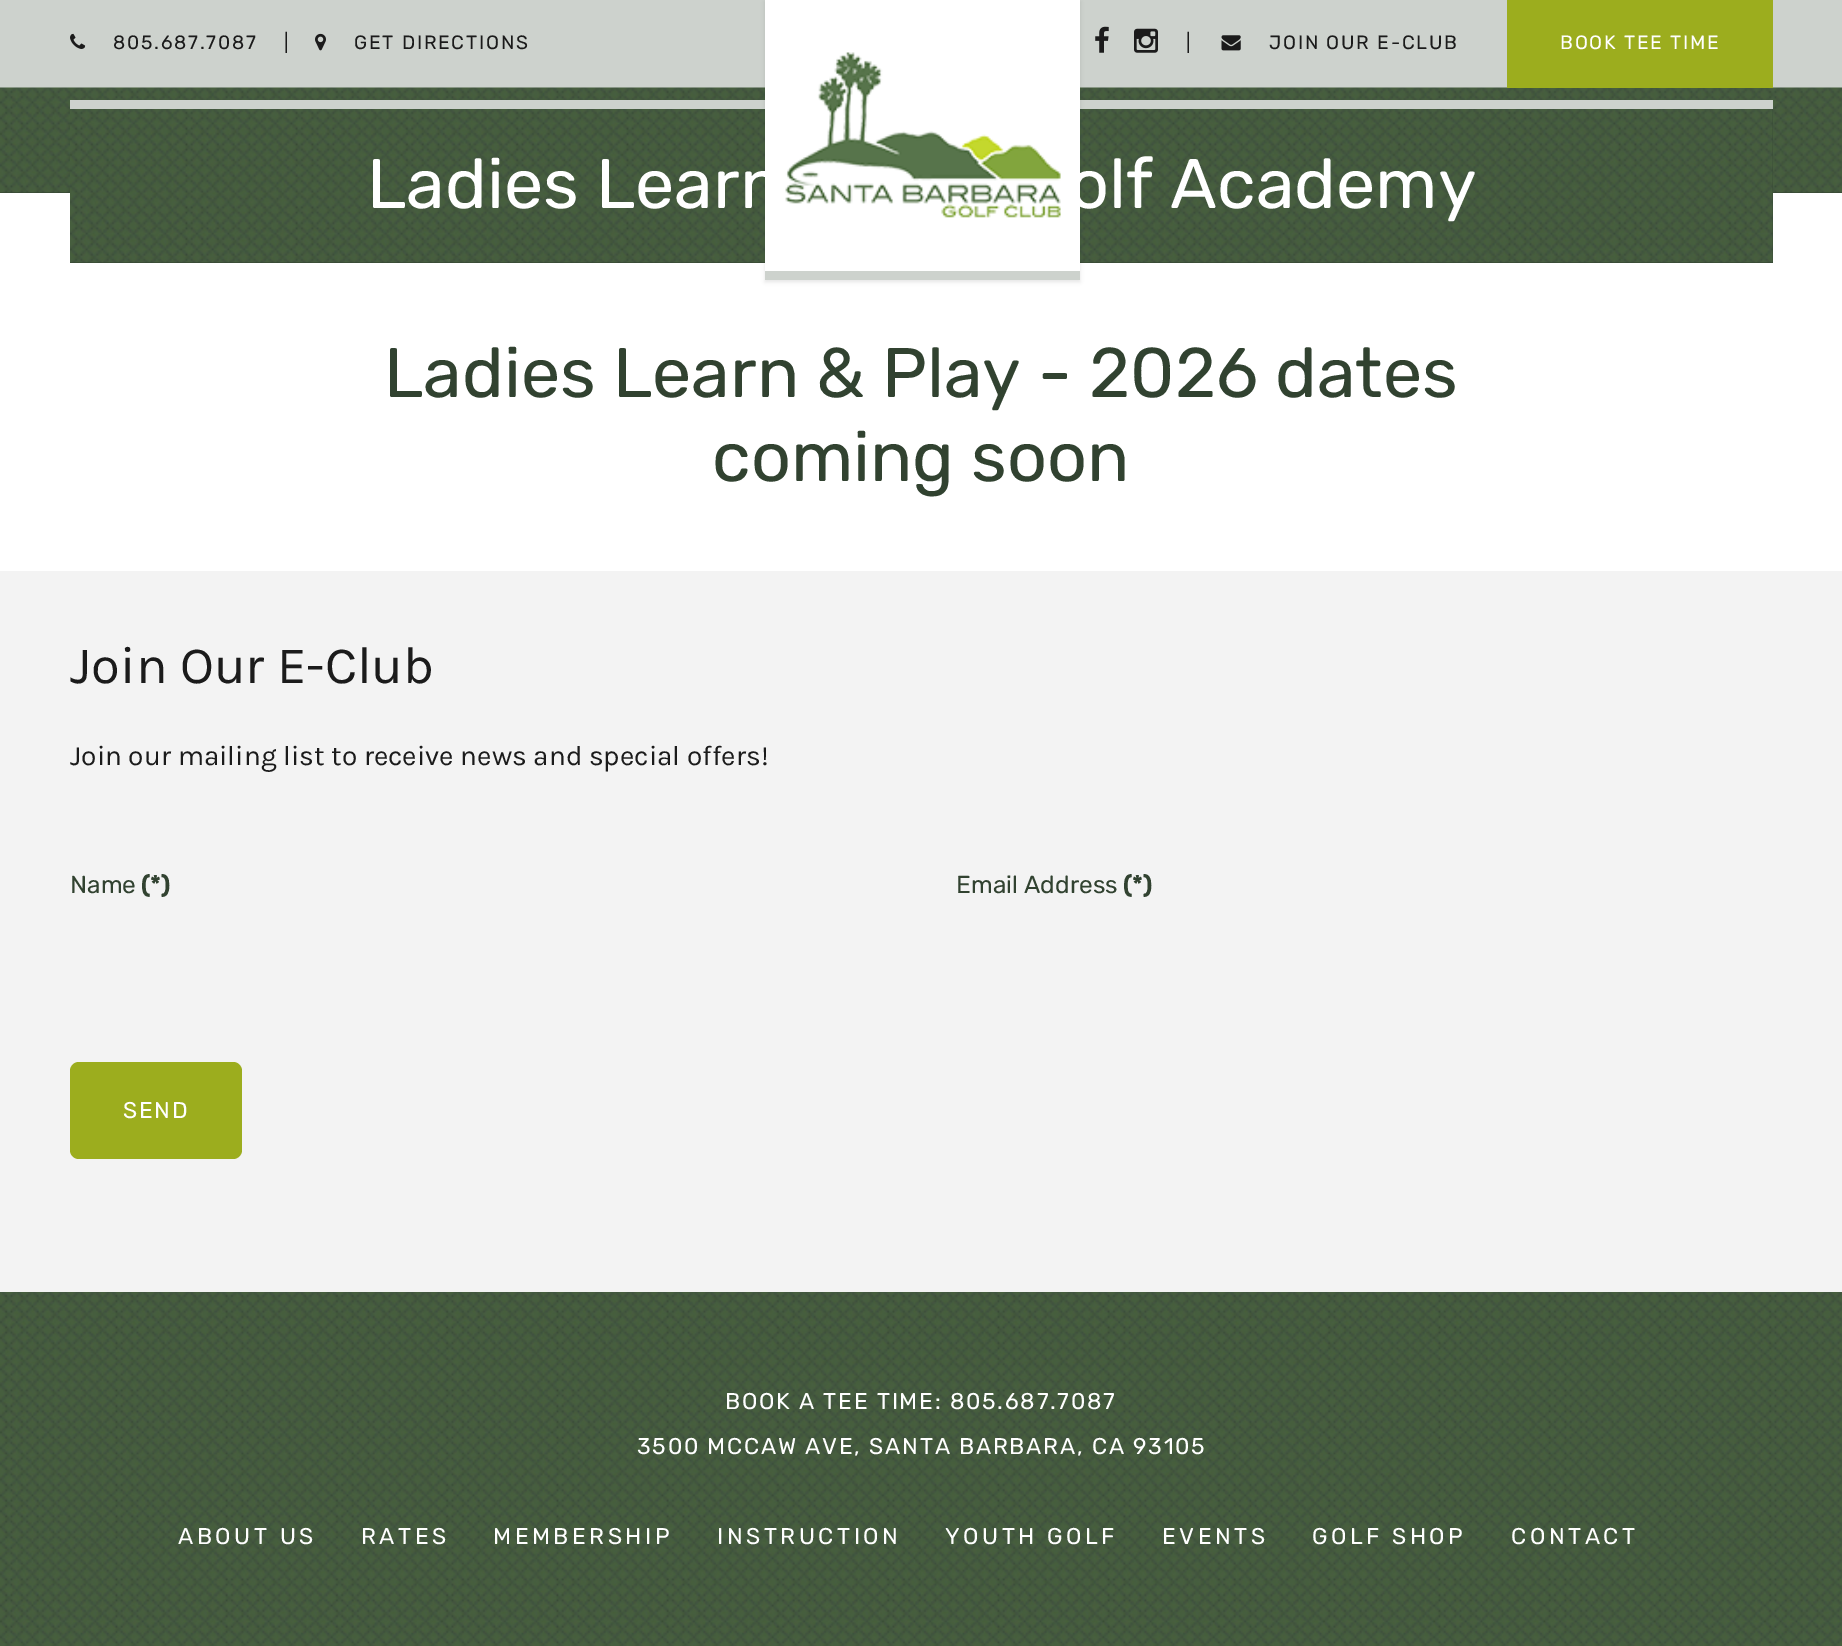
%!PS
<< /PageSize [1842 1646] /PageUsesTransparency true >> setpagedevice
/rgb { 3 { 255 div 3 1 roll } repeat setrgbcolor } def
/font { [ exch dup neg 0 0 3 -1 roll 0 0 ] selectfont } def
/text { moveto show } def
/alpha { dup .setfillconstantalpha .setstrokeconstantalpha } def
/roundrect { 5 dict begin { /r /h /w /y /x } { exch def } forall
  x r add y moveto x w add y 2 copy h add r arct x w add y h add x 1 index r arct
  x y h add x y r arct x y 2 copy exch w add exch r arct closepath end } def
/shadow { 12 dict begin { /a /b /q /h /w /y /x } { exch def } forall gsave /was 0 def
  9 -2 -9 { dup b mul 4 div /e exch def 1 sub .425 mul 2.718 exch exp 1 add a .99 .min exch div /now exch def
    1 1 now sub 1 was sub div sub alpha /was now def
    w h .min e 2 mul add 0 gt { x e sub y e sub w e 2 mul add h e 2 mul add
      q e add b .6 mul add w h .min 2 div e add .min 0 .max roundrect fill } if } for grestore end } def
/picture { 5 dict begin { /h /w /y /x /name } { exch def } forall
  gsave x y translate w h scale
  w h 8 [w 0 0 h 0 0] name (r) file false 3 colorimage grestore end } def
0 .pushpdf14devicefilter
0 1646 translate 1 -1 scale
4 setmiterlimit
255 255 255 rgb
0 0 1842 1646 rectfill
49 66 48 rgb
0 192 1842 1 rectfill
205 210 205 rgb
0 0 1842 88 rectfill
(img_01.rgb) 0 87 1842 106 picture
49 66 48 rgb
70 109 1703 154 rectfill
(img_08.rgb) 70 109 1703 154 picture
205 210 205 rgb
70 100 1703 9 rectfill
0 0 0 rgb
765 2 315 280 0 2 0.1 shadow
255 255 255 rgb
765 0 315 271 rectfill
205 210 205 rgb
765 271 315 9 rectfill
(img_02.rgb) 785 52 276 166 picture
(img_03.rgb) 70 33 16 16 picture
(img_04.rgb) 315 33 11 18 picture
(img_05.rgb) 1095 26 14 27 picture
(img_06.rgb) 1134 28 24 25 picture
(img_07.rgb) 1221 35 20 16 picture
156 173 30 rgb
1507 0 266 88 rectfill
243 243 243 rgb
0 571 1842 721 rectfill
156 173 30 rgb
70 1062 172 97 9 roundrect fill
(img_09.rgb) 0 1292 1842 354 picture
/Rubik-Regular 19.25 font
27 27 27 rgb
113 49 moveto 1.75 0 (805.687.7087) ashow
(|) 284 49 text
354 49 moveto 1.75 0 (GET DIRECTIONS) ashow
(|) 1186 49 text
1269 49 moveto 1.75 0 (JOIN OUR E-CLUB) ashow
255 255 255 rgb
1560 49 moveto 1.75 0 (BOOK TEE TIME) ashow
/Rubik-Regular 70 font
(Ladies Learn) 367 208 text
(olf Academy) 1069 208 text
49 66 48 rgb
(Ladies Learn & Play - 2026 dates) 384 397 text
(coming soon) 712 481 text
/Karla-Regular 52.5 font
27 27 27 rgb
(Join Our E-Club) 70 683 text
/Karla-Regular 28 font
(Join our mailing list to receive news and special offers!) 70 765 text
/Rubik-Regular 24.5 font
49 66 48 rgb
(Name) 70 893 text
/Rubik-Bold 24.5 font
(\(*\)) 141 893 text
/Rubik-Regular 24.5 font
(Email Address) 956 893 text
/Rubik-Bold 24.5 font
(\(*\)) 1123 893 text
/Rubik-Regular 22.75 font
255 255 255 rgb
123 1118 moveto 1.75 0 (SEND) ashow
725 1409 moveto 1.75 0 (BOOK A TEE TIME: 805.687.7087) ashow
637 1454 moveto 1.75 0 (3500 MCCAW AVE, SANTA BARBARA, CA 93105) ashow
178 1544 moveto 3.5 0 (ABOUT US) ashow
361 1544 moveto 3.5 0 (RATES) ashow
493 1544 moveto 3.5 0 (MEMBERSHIP) ashow
717 1544 moveto 3.5 0 (INSTRUCTION) ashow
945 1544 moveto 3.5 0 (YOUTH GOLF) ashow
1162 1544 moveto 3.5 0 (EVENTS) ashow
1312 1544 moveto 3.5 0 (GOLF SHOP) ashow
1511 1544 moveto 3.5 0 (CONTACT) ashow
.poppdf14devicefilter showpage
